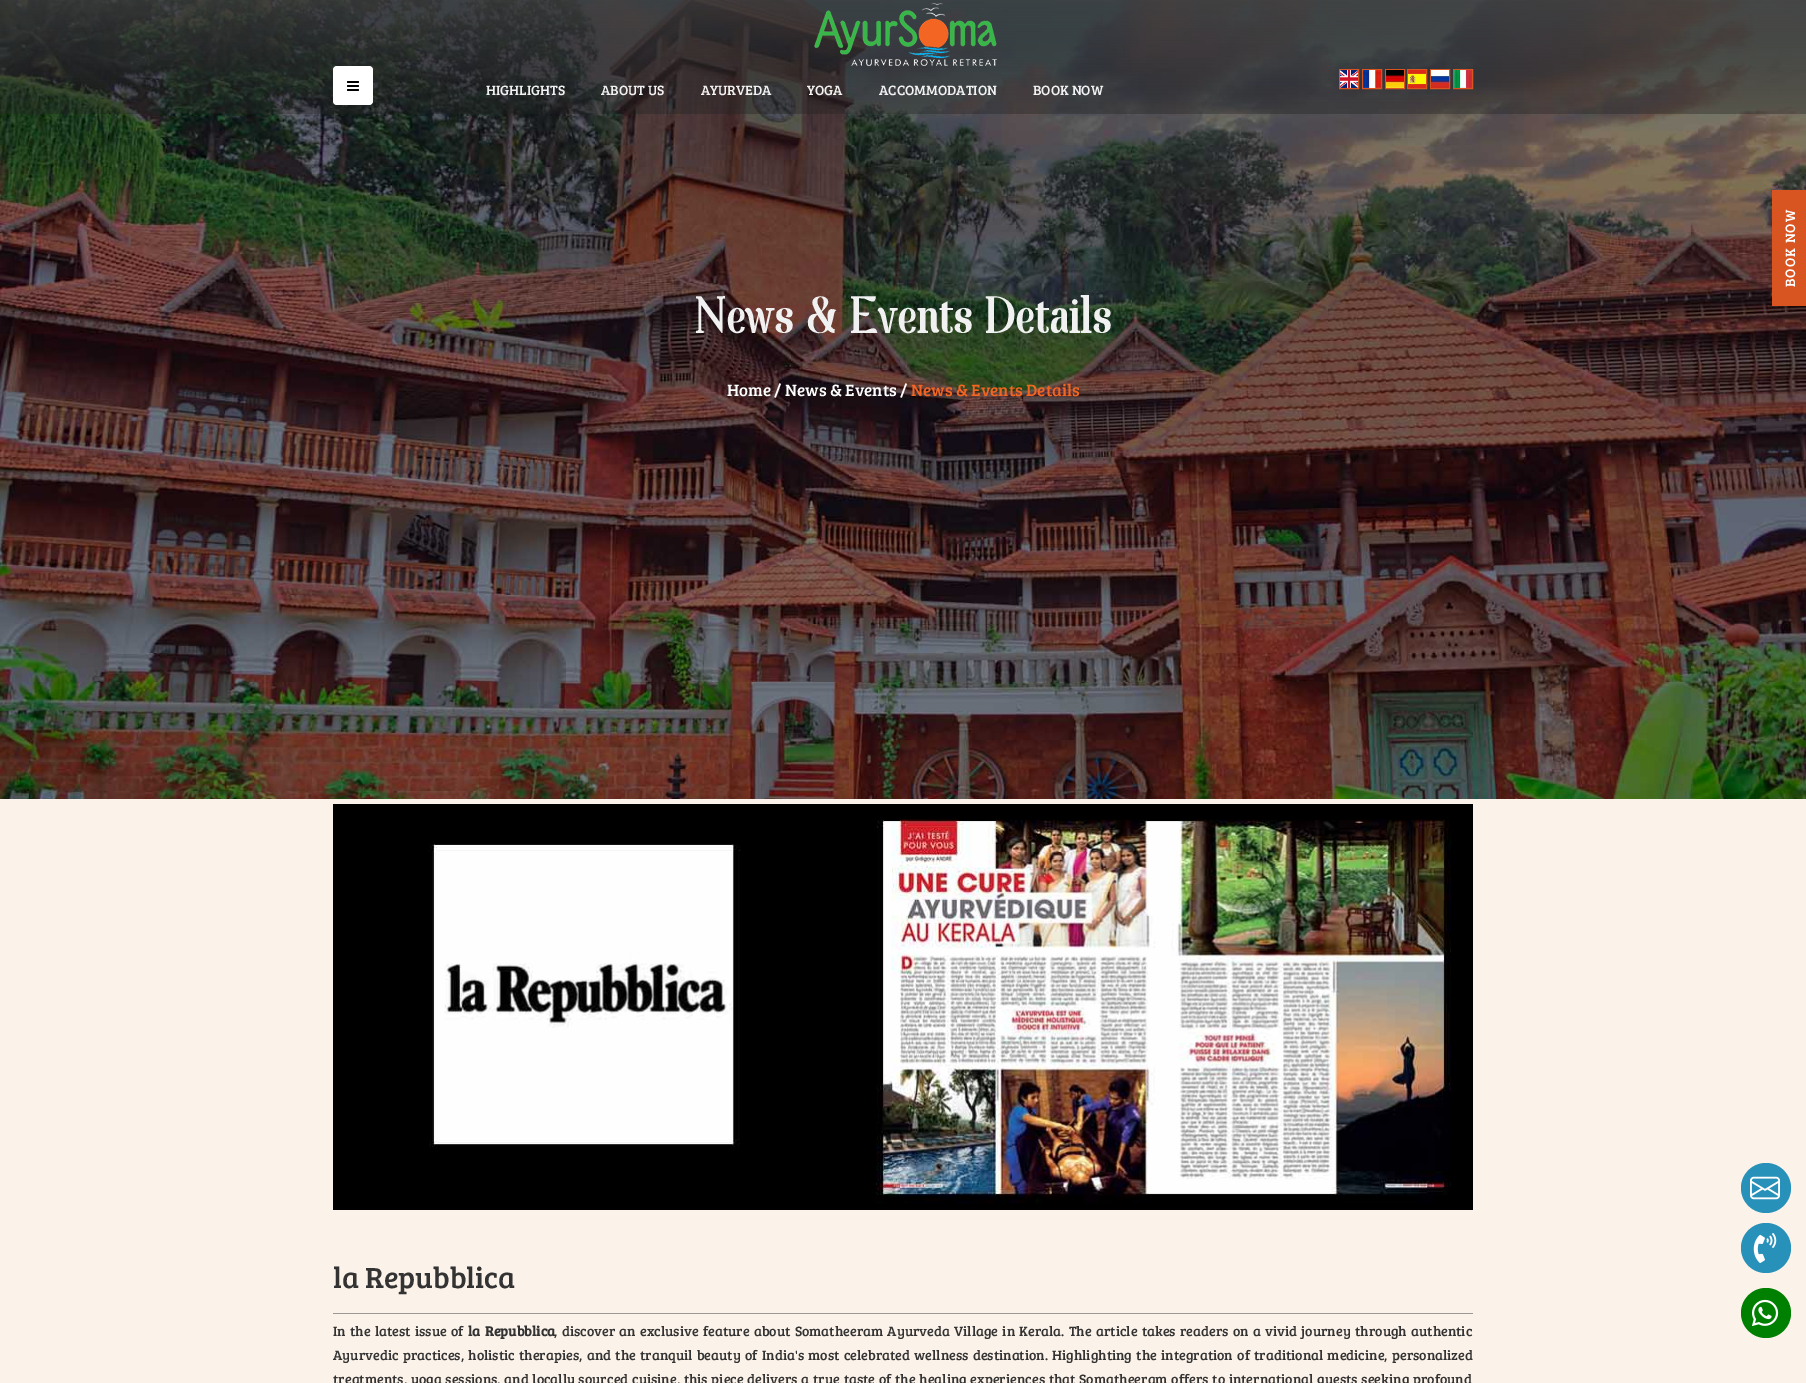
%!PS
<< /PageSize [1806 1383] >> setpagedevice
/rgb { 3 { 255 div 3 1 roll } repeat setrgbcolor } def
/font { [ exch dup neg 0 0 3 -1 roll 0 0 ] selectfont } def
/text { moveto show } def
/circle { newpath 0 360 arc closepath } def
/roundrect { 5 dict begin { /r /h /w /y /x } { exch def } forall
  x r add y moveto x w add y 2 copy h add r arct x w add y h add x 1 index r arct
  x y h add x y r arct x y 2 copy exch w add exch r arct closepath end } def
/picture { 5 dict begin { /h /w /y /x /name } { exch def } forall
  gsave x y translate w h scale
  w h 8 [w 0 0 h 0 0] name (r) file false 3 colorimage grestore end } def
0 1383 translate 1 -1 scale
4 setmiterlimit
251 242 233 rgb
0 0 1806 1383 rectfill
(img_09.rgb) 0 0 1806 799 picture
255 255 255 rgb
333 66 40 39 4 roundrect fill
(img_01.rgb) 347 81 12 10 picture
(img_02.rgb) 814 3 183 63 picture
216 85 33 rgb
1339.5 69.5 19 19 rectstroke
1362.5 69.5 19 19 rectstroke
1385.5 69.5 19 19 rectstroke
1407.5 69.5 19 19 rectstroke
1430.5 69.5 19 19 rectstroke
1453.5 69.5 19 19 rectstroke
(img_03.rgb) 1340 70 18 18 picture
(img_04.rgb) 1363 70 18 18 picture
(img_05.rgb) 1386 70 18 18 picture
(img_06.rgb) 1408 70 18 18 picture
(img_07.rgb) 1431 70 18 18 picture
(img_08.rgb) 1454 70 18 18 picture
1772 190 34 116 rectfill
40 145 185 rgb
1766 1188 25 circle fill
(img_10.rgb) 1750 1176 30 24 picture
1766 1248 25 circle fill
(img_11.rgb) 1753 1233 24 30 picture
(img_12.rgb) 333 804 1140 406 picture
156 152 152 rgb
333 1313 1140 1 rectfill
0 128 0 rgb
1766 1313 25 circle fill
(img_13.rgb) 1752 1299 27 27 picture
/BreeSerif-Regular 14 font
241 241 241 rgb
(HIGHLIGHTS) 486 95 text
(ABOUT US) 601 95 text
(AYURVEDA) 701 95 text
(YOGA) 807 95 text
(ACCOMMODATION) 879 95 text
(BOOK NOW) 1033 95 text
255 255 255 rgb
gsave 1795 287 translate -90 rotate 0 0 moveto 1 0 (BOOK NOW) ashow grestore
/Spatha-Regular 50 font
241 241 241 rgb
(News & Events Details) 695 333 text
/BreeSerif-Regular 17 font
255 255 255 rgb
(Home / News & Events /) 727 396 text
242 102 34 rgb
(News & Events Details) 911 396 text
/BreeSerif-Regular 30 font
51 51 51 rgb
(la Repubblica) 333 1288 text
/BreeSerif-Regular 14 font
333 1336 moveto 1.5 0 32 (In the latest issue of) widthshow
/BreeSerif-Bold 14 font
468 1336 moveto 2 0 32 (la Repubblica) widthshow
/BreeSerif-Regular 14 font
554 1336 moveto 1.5 0 32 (, discover an exclusive feature about Somatheeram Ayurveda Village in Kerala. The article takes readers on a vivid journey through authentic) widthshow
333 1360 moveto 1.5 0 32 (Ayurvedic practices, holistic therapies, and the tranquil beauty of India's most celebrated wellness destination. Highlighting the integration of traditional medicine, personalized) widthshow
333 1384 moveto 0.9 0 32 (treatments, yoga sessions, and locally sourced cuisine, this piece delivers a true taste of the healing experiences that Somatheeram offers to international guests seeking profound) widthshow
showpage
